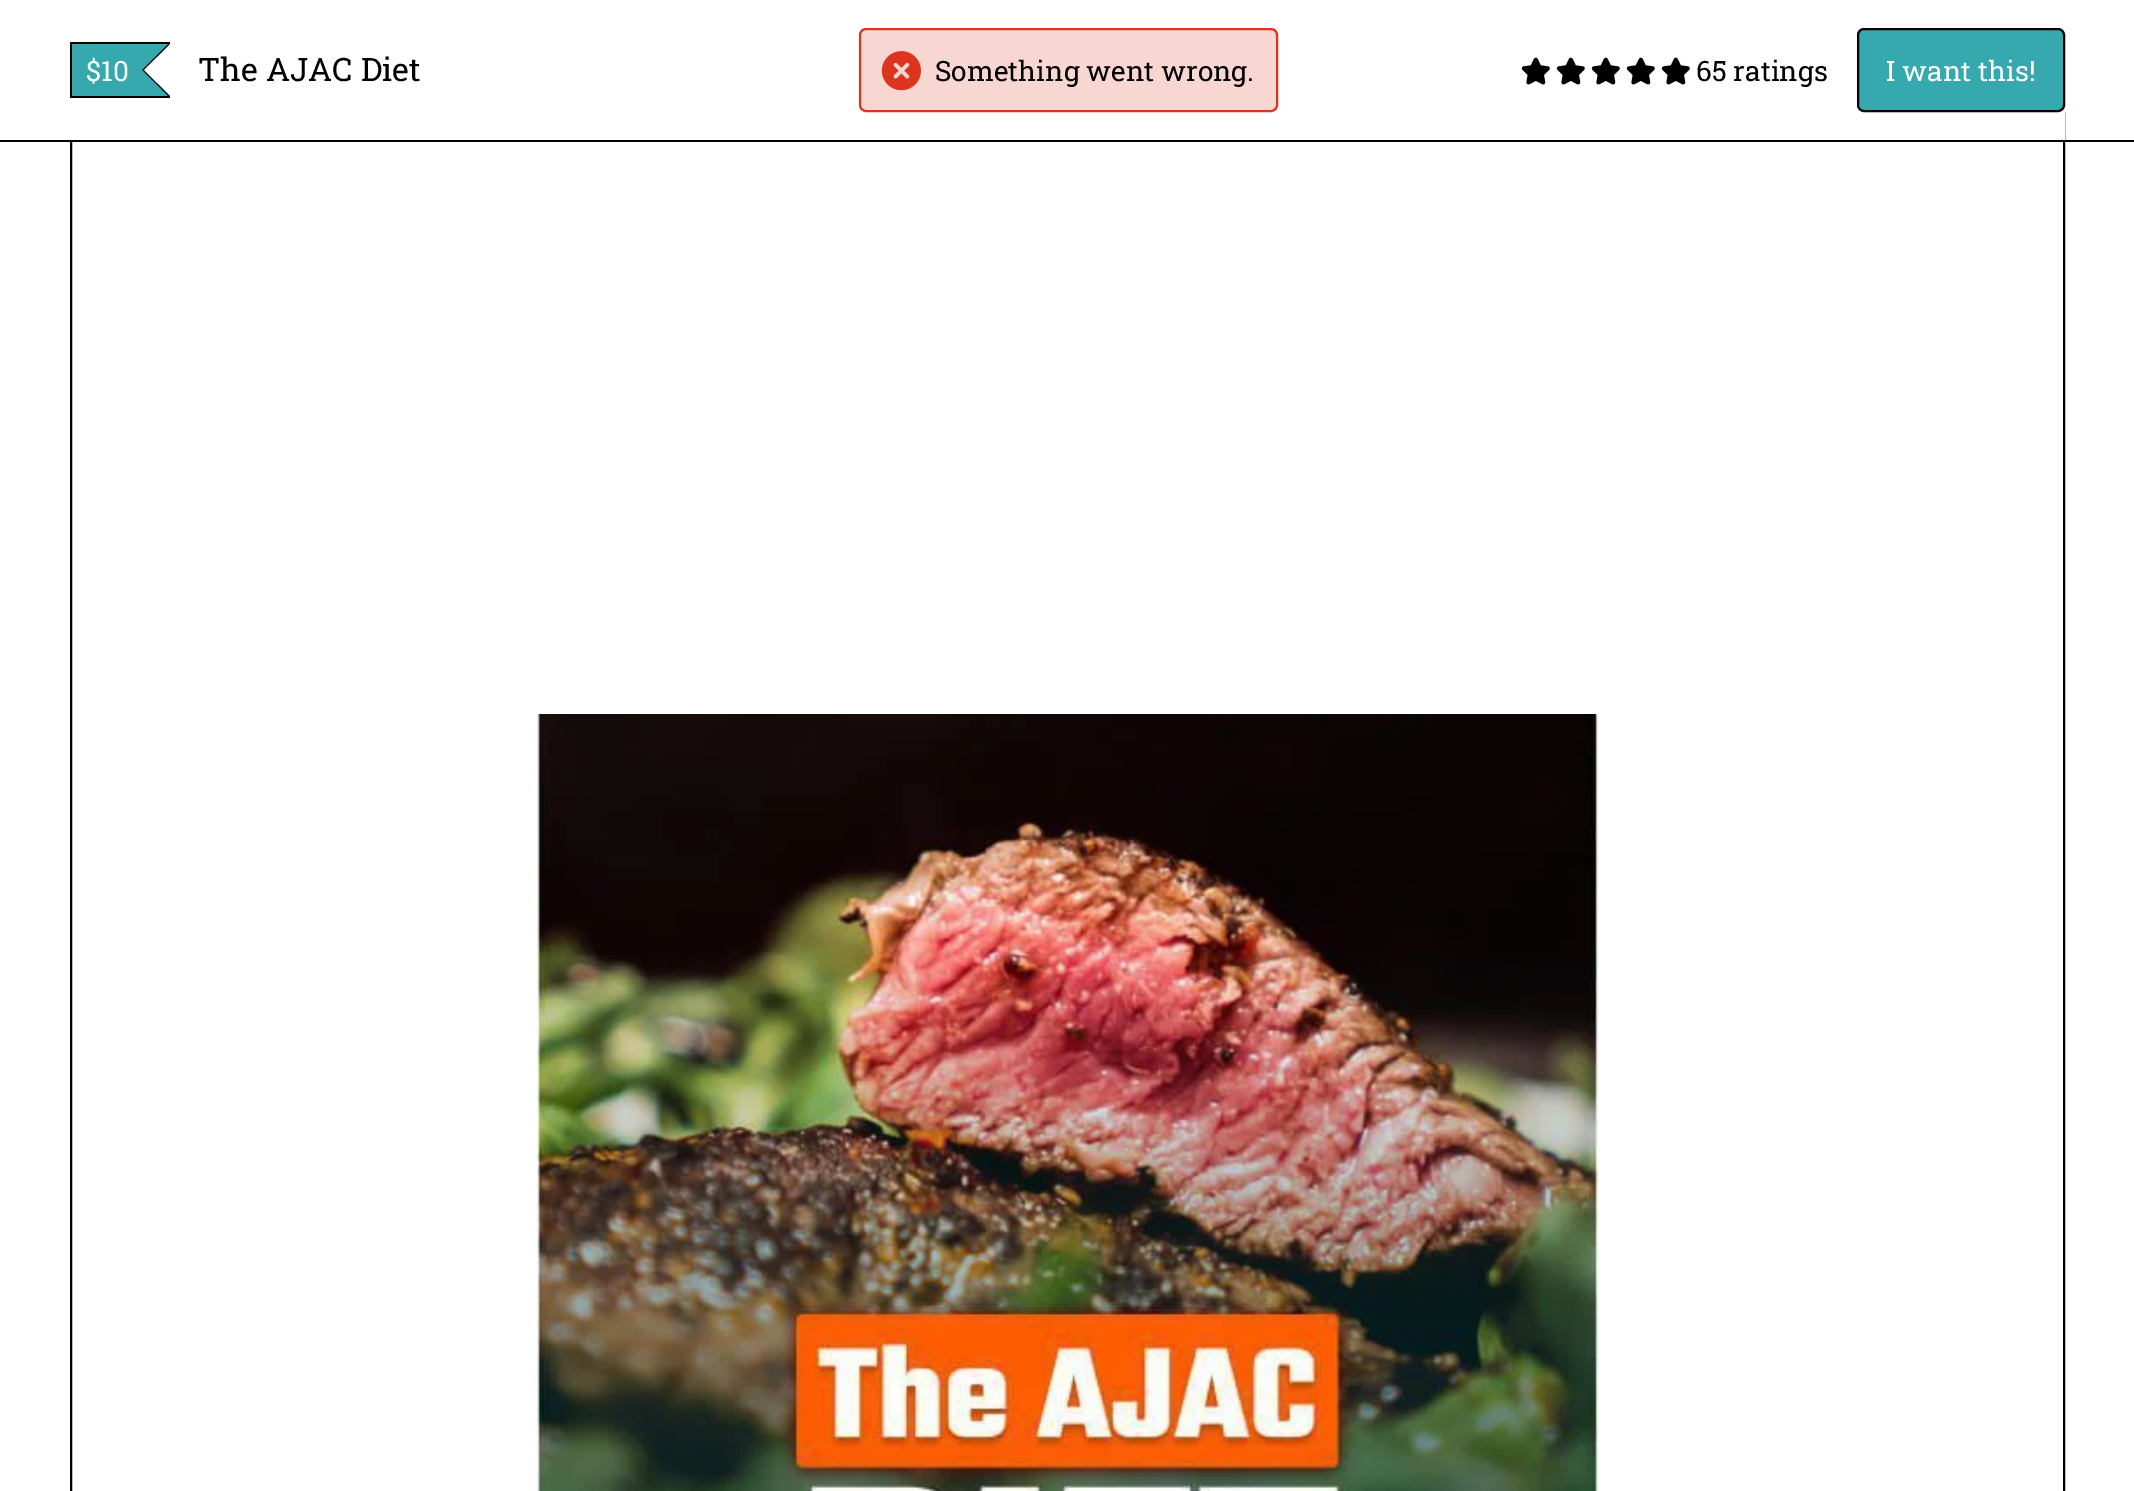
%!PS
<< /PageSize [2134 1491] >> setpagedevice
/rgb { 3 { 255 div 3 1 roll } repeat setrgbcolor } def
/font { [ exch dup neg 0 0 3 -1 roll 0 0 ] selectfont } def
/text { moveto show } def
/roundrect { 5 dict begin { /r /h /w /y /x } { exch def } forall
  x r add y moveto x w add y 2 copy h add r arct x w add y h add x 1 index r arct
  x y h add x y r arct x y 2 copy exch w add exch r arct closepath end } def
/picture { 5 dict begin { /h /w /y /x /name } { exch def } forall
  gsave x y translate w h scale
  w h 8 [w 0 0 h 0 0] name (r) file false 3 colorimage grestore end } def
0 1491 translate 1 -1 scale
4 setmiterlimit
255 255 255 rgb
0 0 2134 1491 rectfill
0 0 0 rgb
2 setlinewidth
71 113 1993 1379 rectstroke
0 140 2134 2 rectfill
255 255 255 rgb
70 112 1995 28 rectfill
0 0 0 rgb
70 42 100 2 rectfill
70 96 100 2 rectfill
70 42 2 56 rectfill
54 169 174 rgb
72 44 70 52 rectfill
0 0 0 rgb
142 44 moveto 28 0 rlineto -26.5 26 rlineto closepath 170 96 moveto -28 0 rlineto 1.5 -26 rlineto closepath fill
142 68 2 4 rectfill
54 169 174 rgb
140 44 moveto 28 0 rlineto -26 26 rlineto closepath 168 96 moveto -28 0 rlineto 2 -26 rlineto closepath fill
(img_01.rgb) 1521 57 29 28 picture
(img_01.rgb) 1556 57 29 28 picture
(img_01.rgb) 1591 57 29 28 picture
(img_01.rgb) 1626 57 29 28 picture
(img_01.rgb) 1661 57 29 28 picture
1858 29 206 82 6 roundrect gsave fill grestore
0 0 0 rgb
stroke
(img_02.rgb) 537 714 1061 777 picture
248 214 210 rgb
860 29 417 82 6 roundrect gsave fill grestore
220 52 30 rgb
stroke
(img_03.rgb) 881 51 40 40 picture
/RobotoSlab-Regular 28 font
255 255 255 rgb
($10) 86 81 text
/RobotoSlab-Regular 32.25 font
0 0 0 rgb
(The AJAC Diet) 198 81 text
/RobotoSlab-Regular 28 font
(65 ratings) 1696 81 text
255 255 255 rgb
(I want this!) 1886 81 text
0 0 0 rgb
(Something went wrong.) 935 81 text
showpage
